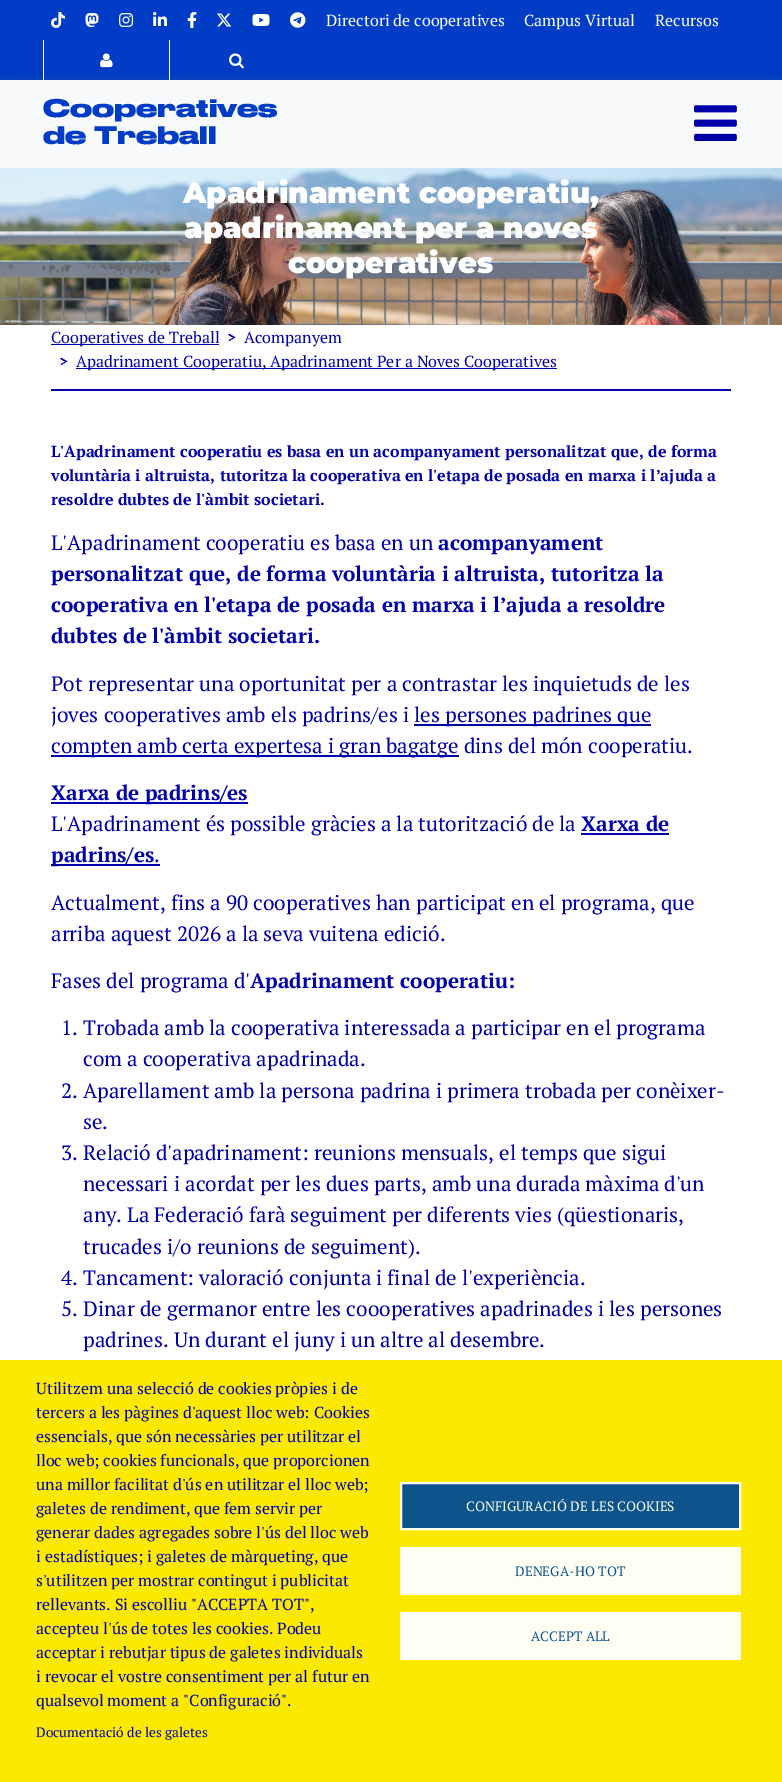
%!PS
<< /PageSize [782 1782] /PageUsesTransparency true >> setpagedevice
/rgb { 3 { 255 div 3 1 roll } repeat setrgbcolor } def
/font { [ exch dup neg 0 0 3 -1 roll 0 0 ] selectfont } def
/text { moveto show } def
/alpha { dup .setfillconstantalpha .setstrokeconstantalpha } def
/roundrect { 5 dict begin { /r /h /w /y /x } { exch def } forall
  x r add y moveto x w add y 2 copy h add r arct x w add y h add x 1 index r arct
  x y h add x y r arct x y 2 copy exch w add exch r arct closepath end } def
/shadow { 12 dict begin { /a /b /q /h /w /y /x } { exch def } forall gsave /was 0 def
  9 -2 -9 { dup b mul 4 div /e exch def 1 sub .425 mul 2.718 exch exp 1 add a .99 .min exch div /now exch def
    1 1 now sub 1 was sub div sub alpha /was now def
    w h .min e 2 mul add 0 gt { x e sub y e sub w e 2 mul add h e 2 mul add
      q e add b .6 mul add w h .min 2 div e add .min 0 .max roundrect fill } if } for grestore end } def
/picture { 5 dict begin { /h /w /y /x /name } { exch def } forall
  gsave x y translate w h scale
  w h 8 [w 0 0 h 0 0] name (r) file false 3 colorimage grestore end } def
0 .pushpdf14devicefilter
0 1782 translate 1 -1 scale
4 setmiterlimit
255 255 255 rgb
0 0 782 1782 rectfill
0 60 197 rgb
0 0 782 80 rectfill
(img_01.rgb) 51 12 14 16 picture
(img_02.rgb) 85 13 14 14 picture
(img_03.rgb) 119 13 14 14 picture
(img_04.rgb) 153 12 14 14 picture
(img_05.rgb) 187 12 10 16 picture
(img_06.rgb) 217 13 15 14 picture
(img_07.rgb) 252 14 18 12 picture
(img_08.rgb) 290 12 16 16 picture
255 255 255 rgb
169 40 1 40 rectfill
43 40 1 40 rectfill
(img_09.rgb) 100 53 13 15 picture
(img_10.rgb) 229 53 15 16 picture
128 128 128 rgb
2 86 778 84 0 5 1 shadow
248 249 250 rgb
0 80 782 88 rectfill
(img_11.rgb) 694 105 43 36 picture
(img_12.rgb) 0 168 782 157 picture
0 0 171 rgb
51 344 168 1 rectfill
76 368 481 1 rectfill
0 0 170 rgb
51 389 680 2 rectfill
0 0 171 rgb
414 724 237 2 rectfill
51 755 408 2 rectfill
51 802 197 2 rectfill
581 833 88 2 rectfill
51 864 109 2 rectfill
251 234 0 rgb
0 1360 782 422 rectfill
13 84 140 rgb
401 1483 moveto 339 0 rlineto 0 46 rlineto -339 0 rlineto closepath gsave fill grestore
255 254 242 rgb
2 setlinewidth
stroke
400 1547 341 48 rectfill
400 1612 341 48 rectfill
/PTSerif-Regular 16 font
255 255 255 rgb
(Directori de cooperatives) 326 26 text
(Campus Virtual) 524 26 text
(Recursos) 655 26 text
/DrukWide-Bold 24 font
0 60 197 rgb
(Cooperatives) 43 117 text
(de Treball) 43 144 text
/Montserrat-Black 29 font
255 255 255 rgb
(Apadrinament cooperatiu,) 183 203 text
(apadrinament per a noves) 184 238 text
(cooperatives) 288 273 text
/PTSerif-Regular 16 font
0 0 171 rgb
(Cooperatives de Treball) 51 343 text
/PTSerif-Bold 16 font
(>) 227 343 text
/PTSerif-Regular 16 font
(Acompanyem) 244 343 text
/PTSerif-Bold 16 font
(>) 59 367 text
/PTSerif-Regular 16 font
(Apadrinament Cooperatiu, Apadrinament Per a Noves Cooperatives) 76 367 text
/PTSerif-Bold 16 font
(L'Apadrinament cooperatiu es basa en un acompanyament personalitzat que, de forma) 51 457 text
(voluntària i altruista, tutoritza la cooperativa en l'etapa de posada en marxa i l’ajuda a) 51 481 text
(resoldre dubtes de l'àmbit societari.) 51 505 text
/PTSerif-Regular 20.8 font
(L'Apadrinament cooperatiu es basa en un) 51 550 text
/PTSerif-Bold 20.8 font
(acompanyament) 438 550 text
(personalitzat que, de forma voluntària i altruista, tutoritza la) 51 581 text
(cooperativa en l'etapa de posada en marxa i l’ajuda a resoldre) 51 612 text
(dubtes de l'àmbit societari.) 51 643 text
/PTSerif-Regular 20.8 font
(Pot representar una oportunitat per a contrastar les inquietuds de les) 51 691 text
(joves cooperatives amb els padrins/es i) 51 722 text
(les persones padrines que) 414 722 text
(compten amb certa expertesa i gran bagatge dins del món cooperatiu.) 51 753 text
/PTSerif-Bold 20.8 font
(Xarxa de padrins/es) 51 800 text
/PTSerif-Regular 20.8 font
(L'Apadrinament és possible gràcies a la tutorització de la) 51 831 text
/PTSerif-Bold 20.8 font
(Xarxa de) 581 831 text
(padrins/es) 51 862 text
/PTSerif-Regular 20.8 font
(.) 154 862 text
(Actualment, fins a 90 cooperatives han participat en el programa, que) 51 910 text
(arriba aquest 2026 a la seva vuitena edició.) 51 941 text
(Fases del programa d') 51 988 text
/PTSerif-Bold 20.8 font
(Apadrinament cooperatiu:) 250 988 text
/PTSerif-Regular 20.8 font
(1. Trobada amb la cooperativa interessada a participar en el programa) 61 1035 text
(com a cooperativa apadrinada.) 83 1066 text
(2. Aparellament amb la persona padrina i primera trobada per conèixer-) 61 1098 text
(se.) 83 1129 text
(3. Relació d'apadrinament: reunions mensuals, el temps que sigui) 61 1160 text
(necessari i acordat per les dues parts, amb una durada màxima d'un) 83 1191 text
(any. La Federació farà seguiment per diferents vies \(qüestionaris,) 83 1222 text
(trucades i/o reunions de seguiment\).) 83 1254 text
(4. Tancament: valoració conjunta i final de l'experiència.) 61 1285 text
(5. Dinar de germanor entre les coooperatives apadrinades i les persones) 61 1316 text
(padrines. Un durant el juny i un altre al desembre.) 83 1347 text
/PTSerif-Regular 16 font
(Utilitzem una selecció de cookies pròpies i de) 36 1394 text
(tercers a les pàgines d'aquest lloc web: Cookies) 36 1418 text
(essencials, que són necessàries per utilitzar el) 36 1442 text
(lloc web; cookies funcionals, que proporcionen) 36 1466 text
(una millor facilitat d'ús en utilitzar el lloc web;) 36 1490 text
(galetes de rendiment, que fem servir per) 36 1514 text
(generar dades agregades sobre l'ús del lloc web) 36 1538 text
(i estadístiques; i galetes de màrqueting, que) 36 1562 text
(s'utilitzen per mostrar contingut i publicitat) 36 1586 text
(rellevants. Si escolliu "ACCEPTA TOT",) 36 1610 text
(accepteu l'ús de totes les cookies. Podeu) 36 1634 text
(acceptar i rebutjar tipus de galetes individuals) 36 1658 text
(i revocar el vostre consentiment per al futur en) 36 1682 text
(qualsevol moment a "Configuració".) 36 1706 text
/PTSerif-Regular 13.6 font
(Documentació de les galetes) 36 1737 text
255 254 242 rgb
(CONFIGURACIÓ DE LES COOKIES) 466 1511 text
13 84 140 rgb
(DENEGA-HO TOT) 515 1576 text
(ACCEPT ALL) 531 1641 text
.poppdf14devicefilter showpage
